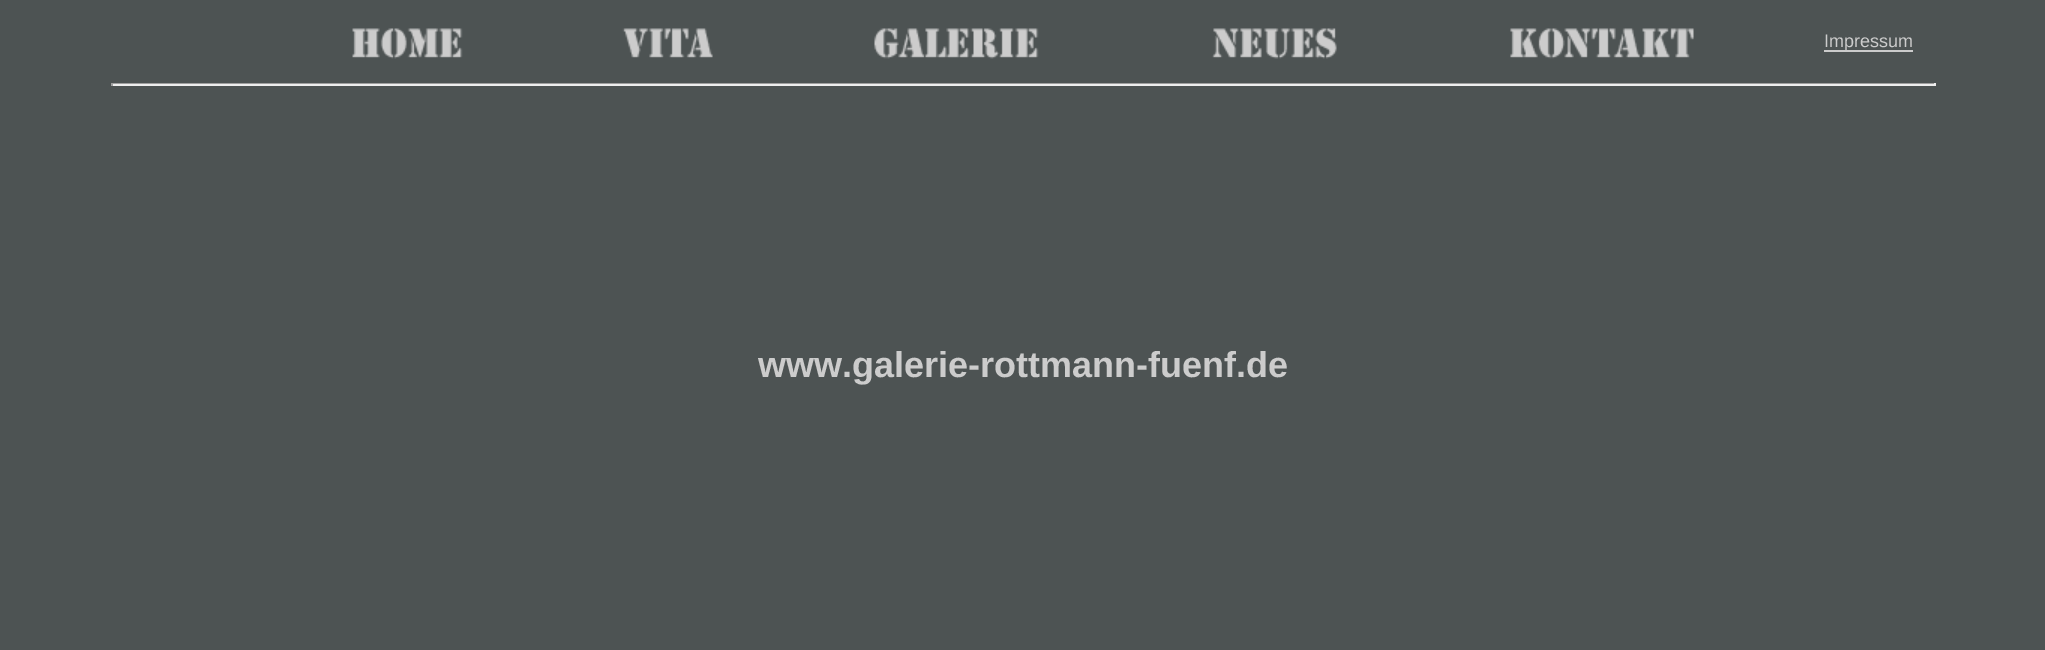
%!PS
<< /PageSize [2045 650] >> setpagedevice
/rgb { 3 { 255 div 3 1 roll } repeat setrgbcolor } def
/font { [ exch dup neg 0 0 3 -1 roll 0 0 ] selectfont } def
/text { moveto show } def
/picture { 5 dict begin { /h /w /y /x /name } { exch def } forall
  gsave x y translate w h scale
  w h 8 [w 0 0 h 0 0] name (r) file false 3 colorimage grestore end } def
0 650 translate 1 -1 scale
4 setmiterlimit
77 83 83 rgb
0 0 2045 650 rectfill
(img_01.rgb) 352 28 1342 31 picture
204 204 204 rgb
1824 50 89 2 rectfill
159 159 159 rgb
111 83 1824 1 rectfill
238 238 238 rgb
1934 83 2 3 rectfill
111 84 1824 2 rectfill
159 159 159 rgb
111 83 2 3 rectfill
/LiberationSans-Regular 18 font
204 204 204 rgb
(Impressum) 1824 47 text
/LiberationSans-Bold 36 font
(www.galerie-rottmann-fuenf.de) 758 377 text
showpage
